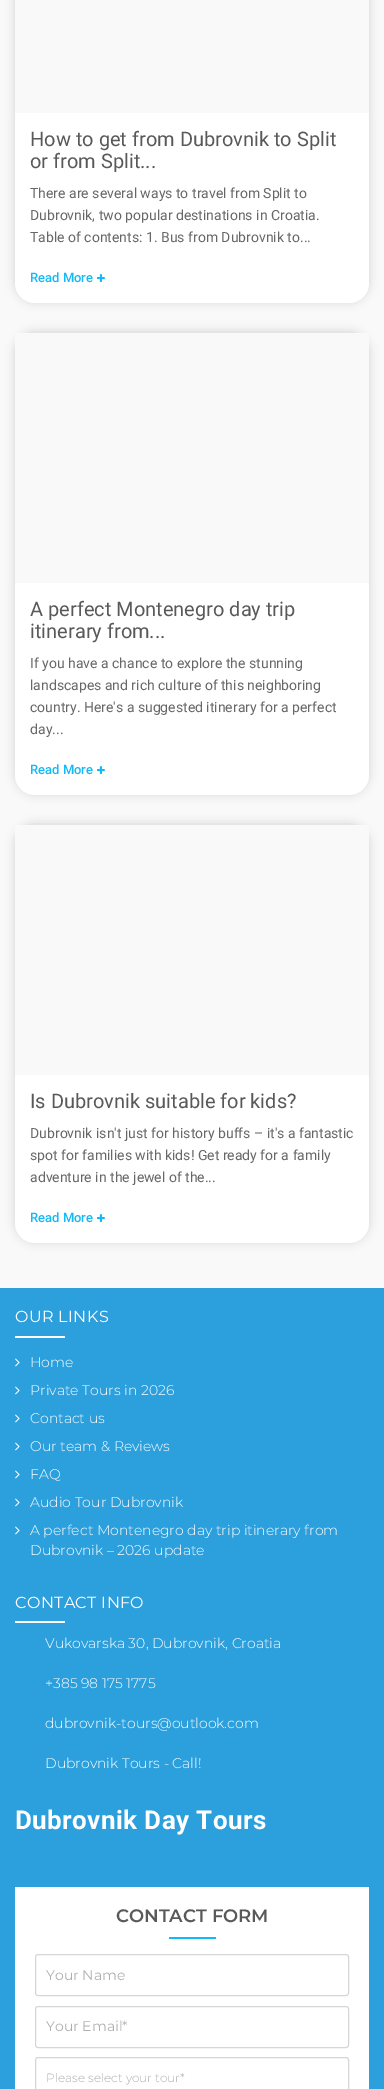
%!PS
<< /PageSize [384 2089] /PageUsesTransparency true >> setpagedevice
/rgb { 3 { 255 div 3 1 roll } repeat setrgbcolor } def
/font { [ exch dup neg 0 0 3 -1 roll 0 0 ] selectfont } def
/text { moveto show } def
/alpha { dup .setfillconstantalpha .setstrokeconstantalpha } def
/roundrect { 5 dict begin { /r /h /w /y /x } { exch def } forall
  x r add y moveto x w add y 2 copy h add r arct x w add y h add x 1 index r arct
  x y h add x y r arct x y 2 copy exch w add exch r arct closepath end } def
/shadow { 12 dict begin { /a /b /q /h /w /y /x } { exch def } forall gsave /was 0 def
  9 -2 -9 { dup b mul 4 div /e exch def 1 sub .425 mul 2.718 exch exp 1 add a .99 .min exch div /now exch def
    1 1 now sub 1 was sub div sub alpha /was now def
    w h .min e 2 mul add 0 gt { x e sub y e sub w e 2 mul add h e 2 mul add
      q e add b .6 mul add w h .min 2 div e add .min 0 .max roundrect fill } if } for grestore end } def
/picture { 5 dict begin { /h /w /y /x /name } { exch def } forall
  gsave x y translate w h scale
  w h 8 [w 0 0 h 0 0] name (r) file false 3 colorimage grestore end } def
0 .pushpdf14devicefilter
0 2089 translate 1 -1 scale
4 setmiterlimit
249 249 249 rgb
0 0 384 2089 rectfill
gsave
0 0 moveto 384 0 rlineto 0 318 rlineto -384 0 rlineto closepath 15 -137 moveto 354 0 rlineto 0 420 rlineto 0 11 -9 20 -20 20 rcurveto -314 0 rlineto -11 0 -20 -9 -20 -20 rcurveto closepath eoclip newpath
172 171 171 rgb
15 -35 354 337 20 5 0.5 shadow
grestore
255 255 255 rgb
15 113 moveto 354 0 rlineto 0 170 rlineto 0 11 -9 20 -20 20 rcurveto -314 0 rlineto -11 0 -20 -9 -20 -20 rcurveto closepath fill
(img_01.rgb) 97 274 8 8 picture
gsave
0 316 moveto 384 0 rlineto 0 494 rlineto -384 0 rlineto closepath 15 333 moveto 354 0 rlineto 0 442 rlineto 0 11 -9 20 -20 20 rcurveto -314 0 rlineto -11 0 -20 -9 -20 -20 rcurveto closepath eoclip newpath
172 171 171 rgb
15 332 354 462 20 5 0.5 shadow
grestore
15 583 moveto 354 0 rlineto 0 192 rlineto 0 11 -9 20 -20 20 rcurveto -314 0 rlineto -11 0 -20 -9 -20 -20 rcurveto closepath fill
(img_01.rgb) 97 766 8 8 picture
gsave
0 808 moveto 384 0 rlineto 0 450 rlineto -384 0 rlineto closepath 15 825 moveto 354 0 rlineto 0 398 rlineto 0 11 -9 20 -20 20 rcurveto -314 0 rlineto -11 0 -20 -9 -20 -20 rcurveto closepath eoclip newpath
172 171 171 rgb
15 824 354 418 20 5 0.5 shadow
grestore
15 1075 moveto 354 0 rlineto 0 148 rlineto 0 11 -9 20 -20 20 rcurveto -314 0 rlineto -11 0 -20 -9 -20 -20 rcurveto closepath fill
(img_01.rgb) 97 1214 8 8 picture
44 159 221 rgb
0 1288 384 801 rectfill
255 255 255 rgb
15 1336 50 2 rectfill
(img_02.rgb) 15 1358 5 9 picture
(img_02.rgb) 15 1386 5 9 picture
(img_02.rgb) 15 1414 5 9 picture
(img_02.rgb) 15 1442 5 9 picture
(img_02.rgb) 15 1470 5 9 picture
(img_02.rgb) 15 1498 5 9 picture
(img_02.rgb) 15 1526 5 9 picture
15 1621 50 2 rectfill
15 1887 354 202 rectfill
19 186 248 rgb
169 1937 47 2 rectfill
214 214 214 rgb
35.5 1954.5 313 41 2.5 roundrect stroke
35.5 2006.5 313 41 2.5 roundrect stroke
35.5 2057.5 313 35 2.5 roundrect stroke
/Roboto-Regular 20 font
89 89 89 rgb
(How to get from Dubrovnik to Split) 30 146 text
(or from Split...) 30 168 text
/Roboto-Regular 14 font
103 103 103 rgb
(There are several ways to travel from Split to) 30 198 text
(Dubrovnik, two popular destinations in Croatia.) 30 220 text
(Table of contents: 1. Bus from Dubrovnik to...) 30 242 text
/Roboto-Medium 13 font
19 186 248 rgb
(Read More) 30 282 text
/Roboto-Regular 20 font
89 89 89 rgb
(A perfect Montenegro day trip) 30 616 text
(itinerary from...) 30 638 text
/Roboto-Regular 14 font
103 103 103 rgb
(If you have a chance to explore the stunning) 30 668 text
(landscapes and rich culture of this neighboring) 30 690 text
(country. Here's a suggested itinerary for a perfect) 30 712 text
(day...) 30 734 text
/Roboto-Medium 13 font
19 186 248 rgb
(Read More) 30 774 text
/Roboto-Regular 20 font
89 89 89 rgb
(Is Dubrovnik suitable for kids?) 30 1108 text
/Roboto-Regular 14 font
103 103 103 rgb
(Dubrovnik isn't just for history buffs – it's a fantastic) 30 1138 text
(spot for families with kids! Get ready for a family) 30 1160 text
(adventure in the jewel of the...) 30 1182 text
/Roboto-Medium 13 font
19 186 248 rgb
(Read More) 30 1222 text
/Montserrat-Regular 16 font
255 255 255 rgb
15 1322 moveto 0.4 0 (OUR LINKS) ashow
/Montserrat-Light 14 font
(Home) 30 1367 text
(Private Tours in 2026) 30 1395 text
(Contact us) 30 1423 text
(Our team & Reviews) 30 1451 text
(FAQ) 30 1479 text
(Audio Tour Dubrovnik) 30 1507 text
(A perfect Montenegro day trip itinerary from) 30 1535 text
(Dubrovnik – 2026 update) 30 1555 text
/Montserrat-Regular 16 font
15 1608 moveto 0.4 0 (CONTACT INFO) ashow
/Montserrat-Light 14 font
(Vukovarska 30, Dubrovnik, Croatia) 45 1648 text
(+385 98 175 1775) 45 1688 text
(dubrovnik-tours@outlook.com) 45 1728 text
(Dubrovnik Tours - Call!) 45 1768 text
/Roboto-Bold 26 font
15 1829 moveto 0.4 0 (Dubrovnik Day Tours) ashow
/Montserrat-SemiBold 18 font
89 89 89 rgb
(CONTACT FORM) 116 1922 text
/Montserrat-Regular 14 font
175 175 175 rgb
(Your Name) 46 1980 text
(Your Email*) 46 2031 text
/Montserrat-Light 12 font
(Please select your tour*) 46 2082 text
.poppdf14devicefilter showpage
